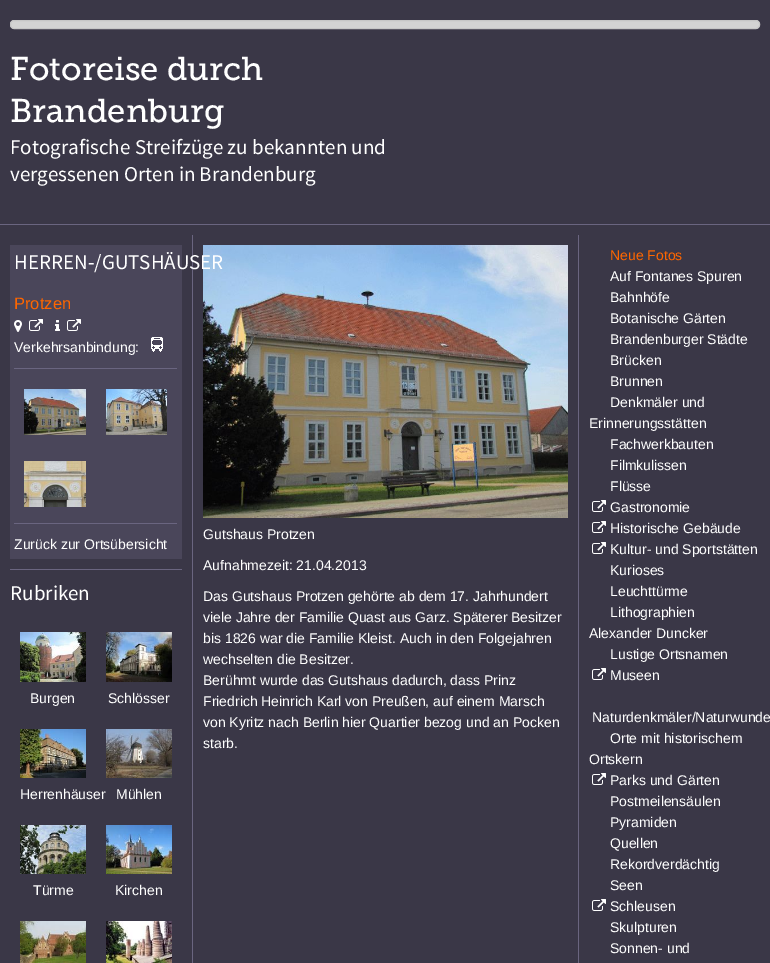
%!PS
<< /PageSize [770 963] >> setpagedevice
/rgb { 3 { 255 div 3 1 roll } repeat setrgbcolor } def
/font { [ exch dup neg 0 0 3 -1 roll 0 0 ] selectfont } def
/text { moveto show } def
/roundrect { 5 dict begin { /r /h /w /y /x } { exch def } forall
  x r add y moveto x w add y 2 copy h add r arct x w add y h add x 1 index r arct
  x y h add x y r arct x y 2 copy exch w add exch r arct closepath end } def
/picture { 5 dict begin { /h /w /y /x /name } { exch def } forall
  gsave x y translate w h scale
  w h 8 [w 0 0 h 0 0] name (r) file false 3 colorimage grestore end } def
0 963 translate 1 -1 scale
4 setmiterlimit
58 55 71 rgb
0 0 770 963 rectfill
211 211 211 rgb
10.5 20.5 749 8 3.5 roundrect gsave fill grestore
198 198 198 rgb
stroke
106 101 128 rgb
0 224 770 1 rectfill
192 235 1 728 rectfill
74 70 90 rgb
10 245 172 314 rectfill
(img_01.rgb) 14 320 8 12 picture
(img_02.rgb) 29 319 14 12 picture
(img_03.rgb) 55 320 5 11 picture
(img_02.rgb) 67 319 14 12 picture
(img_04.rgb) 151 337 12 15 picture
106 101 128 rgb
14 368 163 1 rectfill
(img_05.rgb) 24 389 62 46 picture
(img_06.rgb) 106 389 61 46 picture
(img_07.rgb) 24 461 62 46 picture
14 523 163 1 rectfill
10 569 172 1 rectfill
(img_08.rgb) 20 632 66 50 picture
(img_09.rgb) 106 632 66 50 picture
(img_10.rgb) 20 729 66 49 picture
(img_11.rgb) 106 729 66 49 picture
(img_12.rgb) 20 825 66 49 picture
(img_13.rgb) 106 825 66 49 picture
(img_14.rgb) 20 921 66 42 picture
(img_15.rgb) 106 921 66 42 picture
(img_16.rgb) 203 245 365 273 picture
578 235 1 728 rectfill
(img_17.rgb) 592 500 14 12 picture
(img_17.rgb) 592 521 14 12 picture
(img_17.rgb) 592 542 14 12 picture
(img_17.rgb) 592 668 14 12 picture
(img_17.rgb) 592 773 14 12 picture
(img_17.rgb) 592 899 14 12 picture
/MuseoSlab-Regular 32.75 font
255 255 255 rgb
(Fotoreise durch) 10 80 text
(Brandenburg) 10 122 text
/SourceSansPro-Regular 21 font
(Fotografische Streifzüge zu bekannten und) 10 154 text
(vergessenen Orten in Brandenburg) 10 181 text
(HERREN-/GUTSHÄUSER) 14 269 text
/LiberationSans-Regular 16.5 font
255 102 0 rgb
(Protzen) 14 309 text
/LiberationSans-Regular 14 font
255 255 255 rgb
(Verkehrsanbindung:) 14 352 text
(Zurück zur Ortsübersicht) 14 549 text
/SourceSansPro-Regular 21 font
(Rubriken) 10 600 text
/LiberationSans-Regular 14 font
(Burgen) 30 703 text
(Schlösser) 108 703 text
(Herrenhäuser) 20 799 text
(Mühlen) 116 799 text
(Türme) 33 895 text
(Kirchen) 115 895 text
(Gutshaus Protzen) 203 539 text
(Aufnahmezeit: 21.04.2013) 203 570 text
(Das Gutshaus Protzen gehörte ab dem 17. Jahrhundert) 203 601 text
(viele Jahre der Familie Quast aus Garz. Späterer Besitzer) 203 622 text
(bis 1826 war die Familie Kleist. Auch in den Folgejahren) 203 643 text
(wechselten die Besitzer.) 203 664 text
(Berühmt wurde das Gutshaus dadurch, dass Prinz) 203 685 text
(Friedrich Heinrich Karl von Preußen, auf einem Marsch) 203 706 text
(von Kyritz nach Berlin hier Quartier bezog und an Pocken) 203 727 text
(starb.) 203 748 text
255 102 0 rgb
(Neue Fotos) 610 260 text
255 255 255 rgb
(Auf Fontanes Spuren) 610 281 text
(Bahnhöfe) 610 302 text
(Botanische Gärten) 610 323 text
(Brandenburger Städte) 610 344 text
(Brücken) 610 365 text
(Brunnen) 610 386 text
(Denkmäler und) 610 407 text
(Erinnerungsstätten) 589 428 text
(Fachwerkbauten) 610 449 text
(Filmkulissen) 610 470 text
(Flüsse) 610 491 text
(Gastronomie) 610 512 text
(Historische Gebäude) 610 533 text
(Kultur- und Sportstätten) 610 554 text
(Kurioses) 610 575 text
(Leuchttürme) 610 596 text
(Lithographien) 610 617 text
(Alexander Duncker) 589 638 text
(Lustige Ortsnamen) 610 659 text
(Museen) 610 680 text
(Naturdenkmäler/Naturwunde) 592 722 text
(Orte mit historischem) 610 743 text
(Ortskern) 589 764 text
(Parks und Gärten) 610 785 text
(Postmeilensäulen) 610 806 text
(Pyramiden) 610 827 text
(Quellen) 610 848 text
(Rekordverdächtig) 610 869 text
(Seen) 610 890 text
(Schleusen) 610 911 text
(Skulpturen) 610 932 text
(Sonnen- und) 610 953 text
showpage
